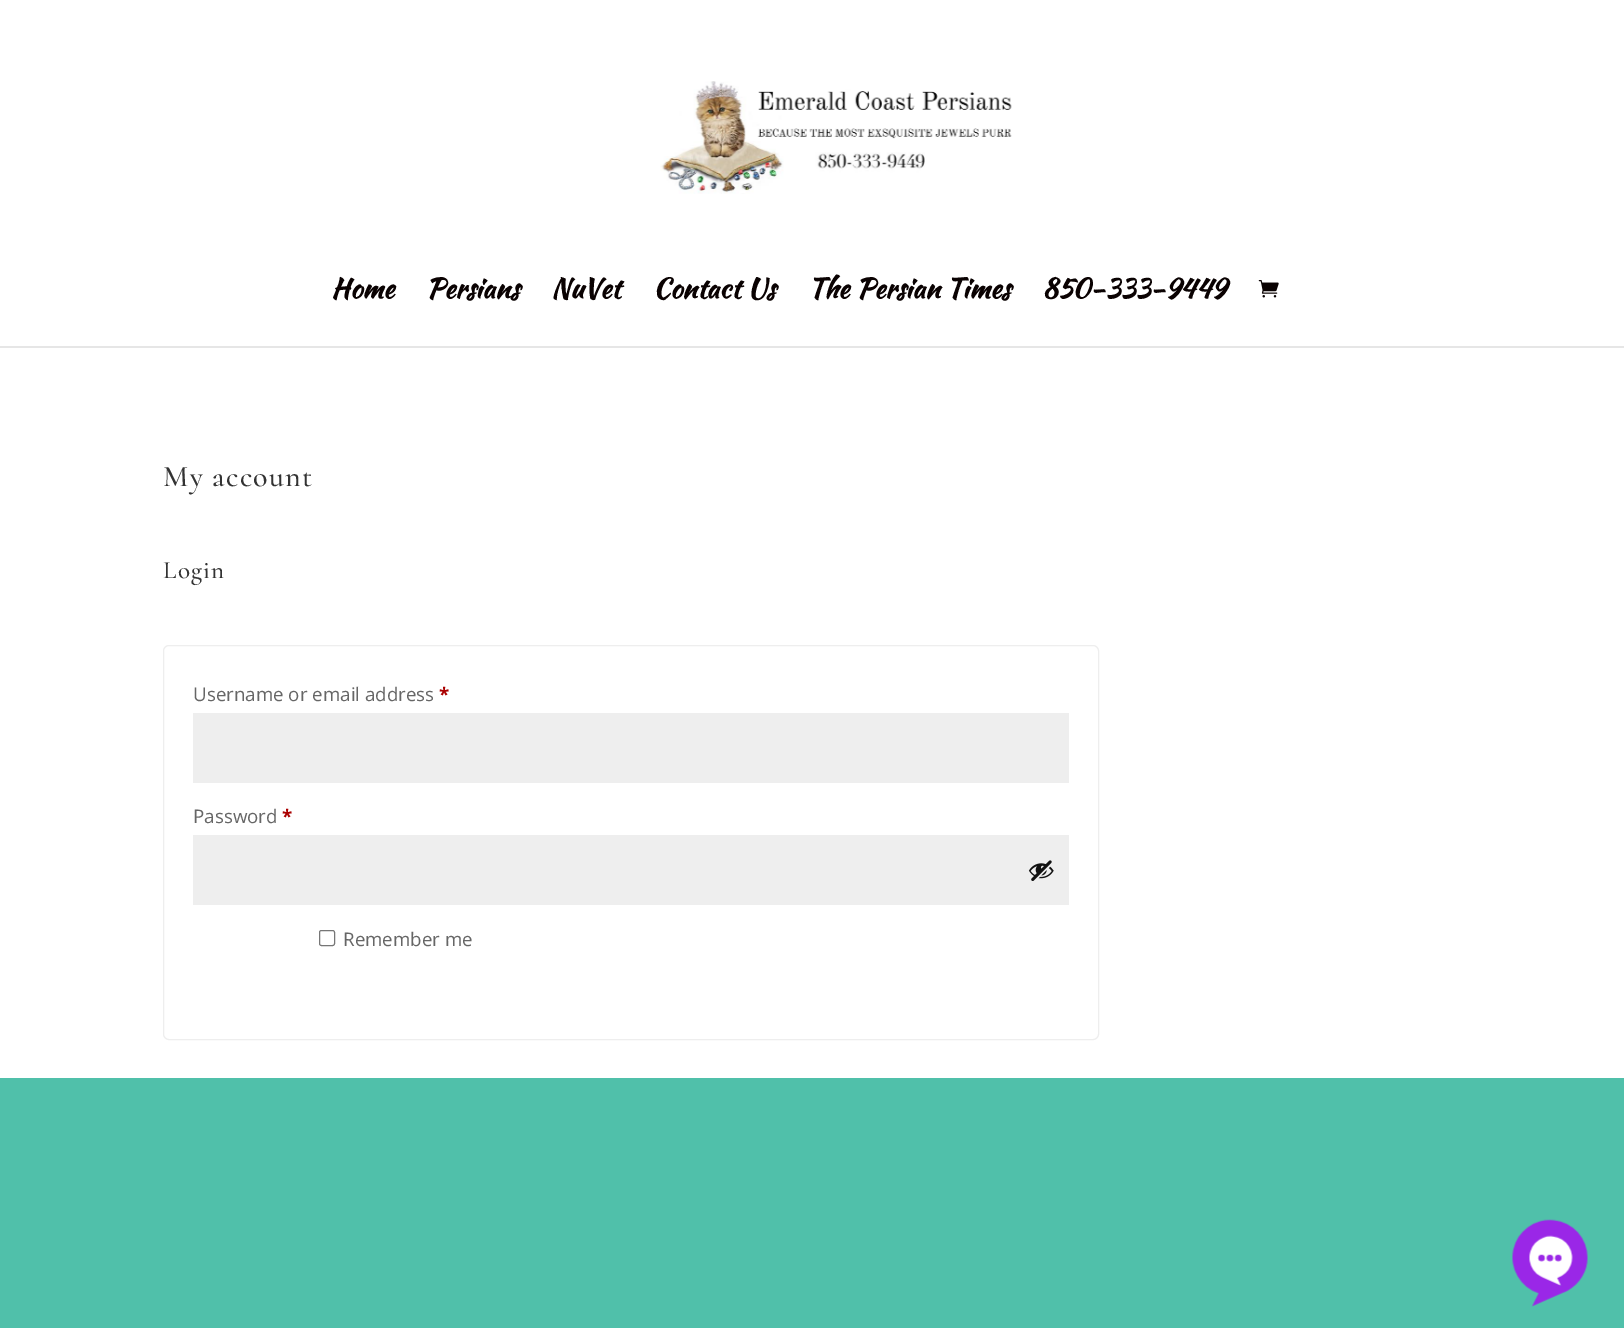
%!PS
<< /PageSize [1624 1328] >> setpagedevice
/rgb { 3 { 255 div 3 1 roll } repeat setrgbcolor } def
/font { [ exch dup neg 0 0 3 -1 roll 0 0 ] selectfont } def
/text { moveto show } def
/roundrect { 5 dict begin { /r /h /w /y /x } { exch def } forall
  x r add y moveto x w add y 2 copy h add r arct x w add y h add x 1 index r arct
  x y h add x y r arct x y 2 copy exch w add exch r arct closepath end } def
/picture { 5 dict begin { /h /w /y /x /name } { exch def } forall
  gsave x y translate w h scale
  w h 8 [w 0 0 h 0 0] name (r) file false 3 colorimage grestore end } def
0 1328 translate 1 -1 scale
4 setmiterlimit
80 192 170 rgb
0 0 1624 1328 rectfill
230 230 230 rgb
0 346 1624 2 rectfill
255 255 255 rgb
0 0 1624 346 rectfill
(img_01.rgb) 660 81 352 113 picture
(img_02.rgb) 1258 280 21 18 picture
0 348 1624 730 rectfill
238 238 238 rgb
163.5 645.5 935 394 5.5 roundrect stroke
193 713 876 70 rectfill
193 835 876 70 rectfill
(img_03.rgb) 1028 860 26 21 picture
118 118 118 rgb
319.5 930.5 15 15 2 roundrect stroke
(img_04.rgb) 1512 1219 76 88 picture
/KaushanScript-Bold 27.5 font
10 2 2 rgb
(Home) 331 298 text
(Persians) 426 298 text
(NuVet) 551 298 text
(Contact Us) 653 298 text
(The Persian Times) 808 298 text
(850-333-9449) 1042 298 text
/Cormorant-Medium 30 font
51 51 51 rgb
163 486 moveto 1.25 0 (My account) ashow
/Cormorant-Medium 25 font
163 578 moveto 1.25 0 (Login) ashow
/OpenSans-Regular 18.75 font
102 102 102 rgb
(Username or email address) 193 701 text
/OpenSans-Bold 18.75 font
170 0 0 rgb
(*) 439 701 text
/OpenSans-Regular 18.75 font
102 102 102 rgb
(Password) 193 823 text
/OpenSans-Bold 18.75 font
170 0 0 rgb
(*) 282 823 text
/OpenSans-Regular 18.75 font
102 102 102 rgb
(Remember me) 343 946 text
showpage
